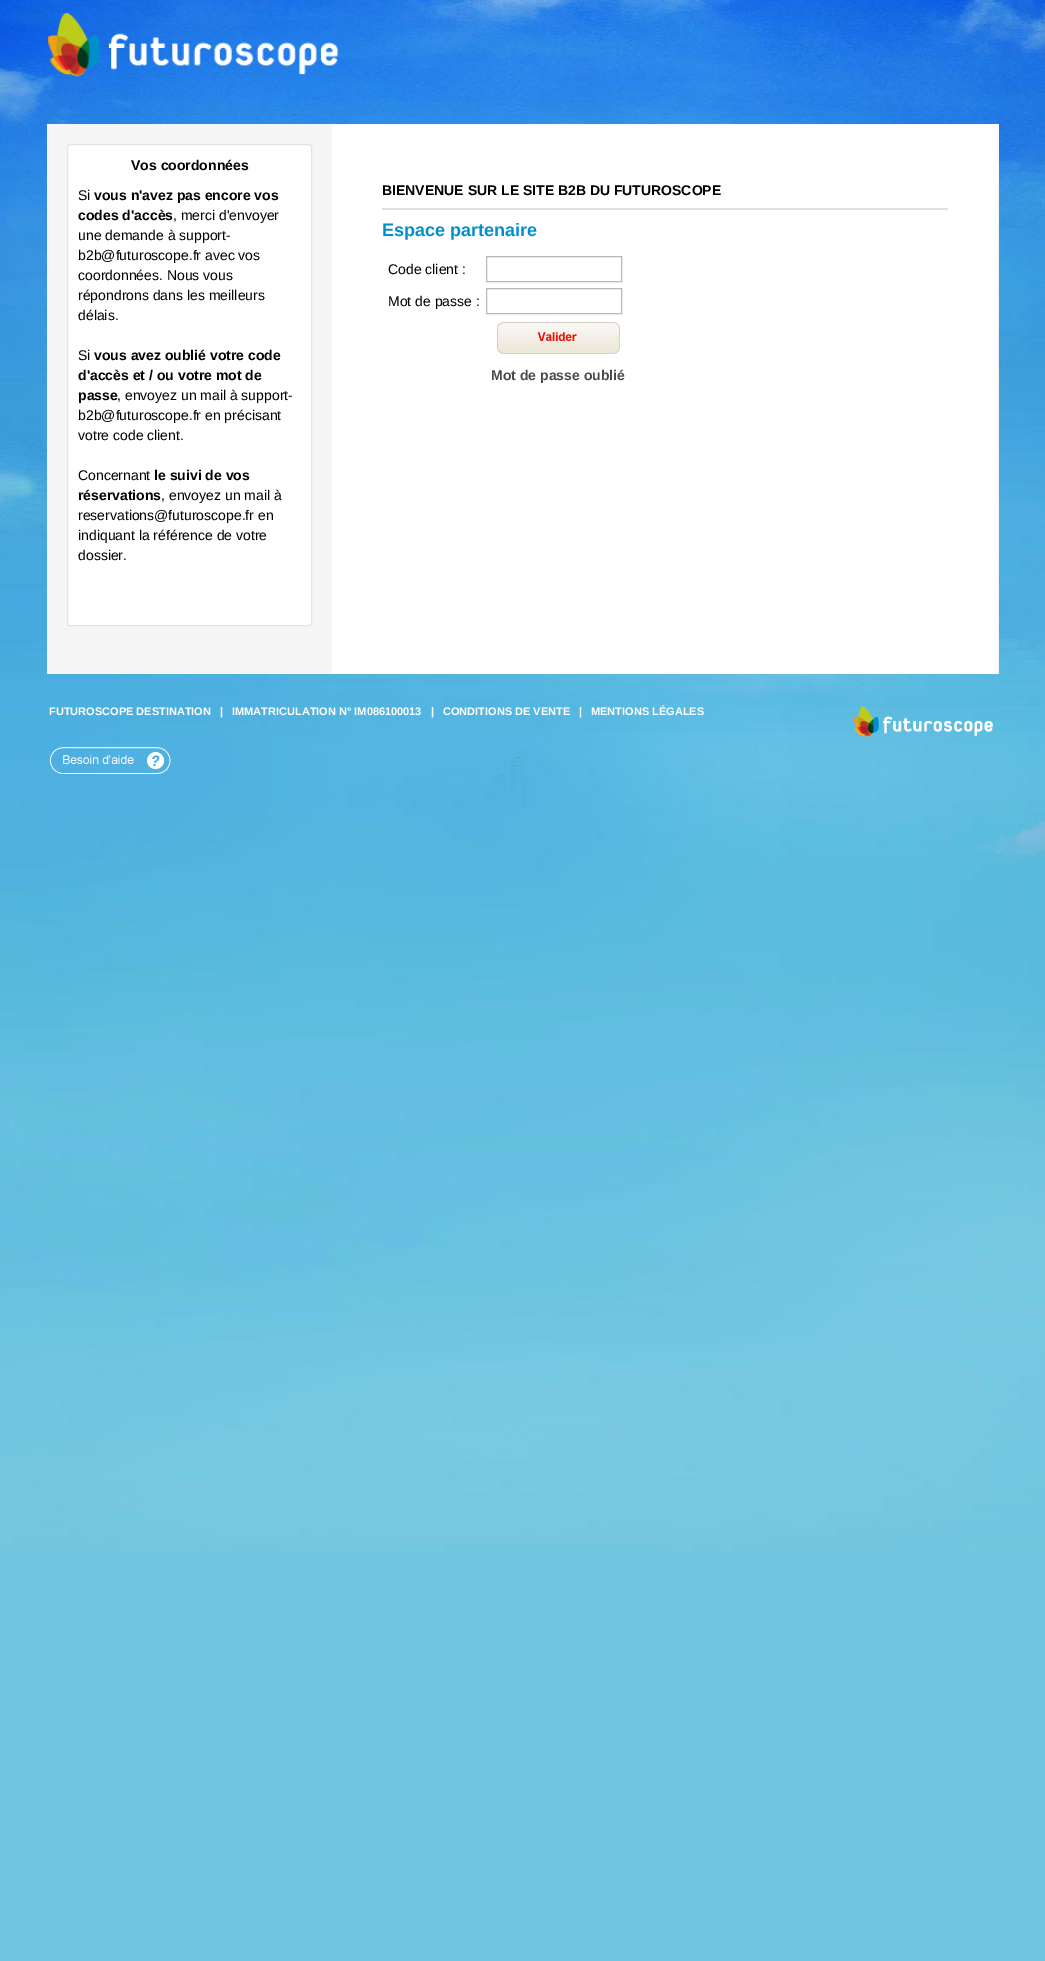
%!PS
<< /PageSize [1045 1961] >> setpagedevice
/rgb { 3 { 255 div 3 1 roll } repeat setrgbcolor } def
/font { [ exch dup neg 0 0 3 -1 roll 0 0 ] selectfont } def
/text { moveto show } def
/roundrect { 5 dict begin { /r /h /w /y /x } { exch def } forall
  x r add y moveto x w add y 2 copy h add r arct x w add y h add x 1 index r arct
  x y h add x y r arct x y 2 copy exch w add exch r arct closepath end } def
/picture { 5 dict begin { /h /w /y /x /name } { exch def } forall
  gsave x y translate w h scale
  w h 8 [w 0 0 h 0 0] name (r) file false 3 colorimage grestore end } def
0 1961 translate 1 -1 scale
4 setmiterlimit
112 198 225 rgb
0 0 1045 1961 rectfill
(img_01.rgb) 0 0 1045 1552 picture
(img_02.rgb) 48 13 291 64 picture
245 245 245 rgb
47 124 952 550 rectfill
255 255 255 rgb
67.5 144.5 244 481 2.5 roundrect gsave fill grestore
227 227 227 rgb
stroke
255 255 255 rgb
332 124 666 550 rectfill
224 224 224 rgb
382 208 566 2 rectfill
184 184 184 rgb
486.5 256.5 135 25 rectstroke
486.5 288.5 135 25 rectstroke
(img_03.rgb) 497 322 123 32 picture
(img_04.rgb) 49 747 122 27 picture
(img_05.rgb) 854 706 139 31 picture
/LiberationSans-Bold 14 font
0 0 0 rgb
(Vos coordonnées) 131 170 text
/LiberationSans-Regular 14 font
(Si) 78 200 text
/LiberationSans-Bold 14 font
(vous n'avez pas encore vos) 94 200 text
(codes d'accès) 78 220 text
/LiberationSans-Regular 14 font
(, merci d'envoyer) 173 220 text
(une demande à support-) 78 240 text
(b2b@futuroscope.fr avec vos) 78 260 text
(coordonnées. Nous vous) 78 280 text
(répondrons dans les meilleurs) 78 300 text
(délais.) 78 320 text
(Si) 78 360 text
/LiberationSans-Bold 14 font
(vous avez oublié votre code) 94 360 text
(d'accès et / ou votre mot de) 78 380 text
(passe) 78 400 text
/LiberationSans-Regular 14 font
(, envoyez un mail à support-) 117 400 text
(b2b@futuroscope.fr en précisant) 78 420 text
(votre code client.) 78 440 text
(Concernant) 78 480 text
/LiberationSans-Bold 14 font
(le suivi de vos) 154 480 text
(réservations) 78 500 text
/LiberationSans-Regular 14 font
(, envoyez un mail à) 161 500 text
(reservations@futuroscope.fr en) 78 520 text
(indiquant la référence de votre) 78 540 text
(dossier.) 78 560 text
/LiberationSans-Bold 14 font
(BIENVENUE SUR LE SITE B2B DU FUTUROSCOPE) 382 195 text
/LiberationSans-Bold 18 font
0 142 204 rgb
(Espace partenaire) 382 236 text
/LiberationSans-Regular 14 font
0 0 0 rgb
(Code client :) 388 274 text
(Mot de passe :) 388 306 text
/LiberationSans-Bold 14 font
74 74 74 rgb
(Mot de passe oublié) 491 380 text
/LiberationSans-Bold 11 font
255 255 255 rgb
(FUTUROSCOPE DESTINATION) 49 715 text
(|) 220 715 text
(IMMATRICULATION N° IM086100013) 232 715 text
(|) 431 715 text
(CONDITIONS DE VENTE) 443 715 text
(|) 579 715 text
(MENTIONS LÉGALES) 591 715 text
showpage
